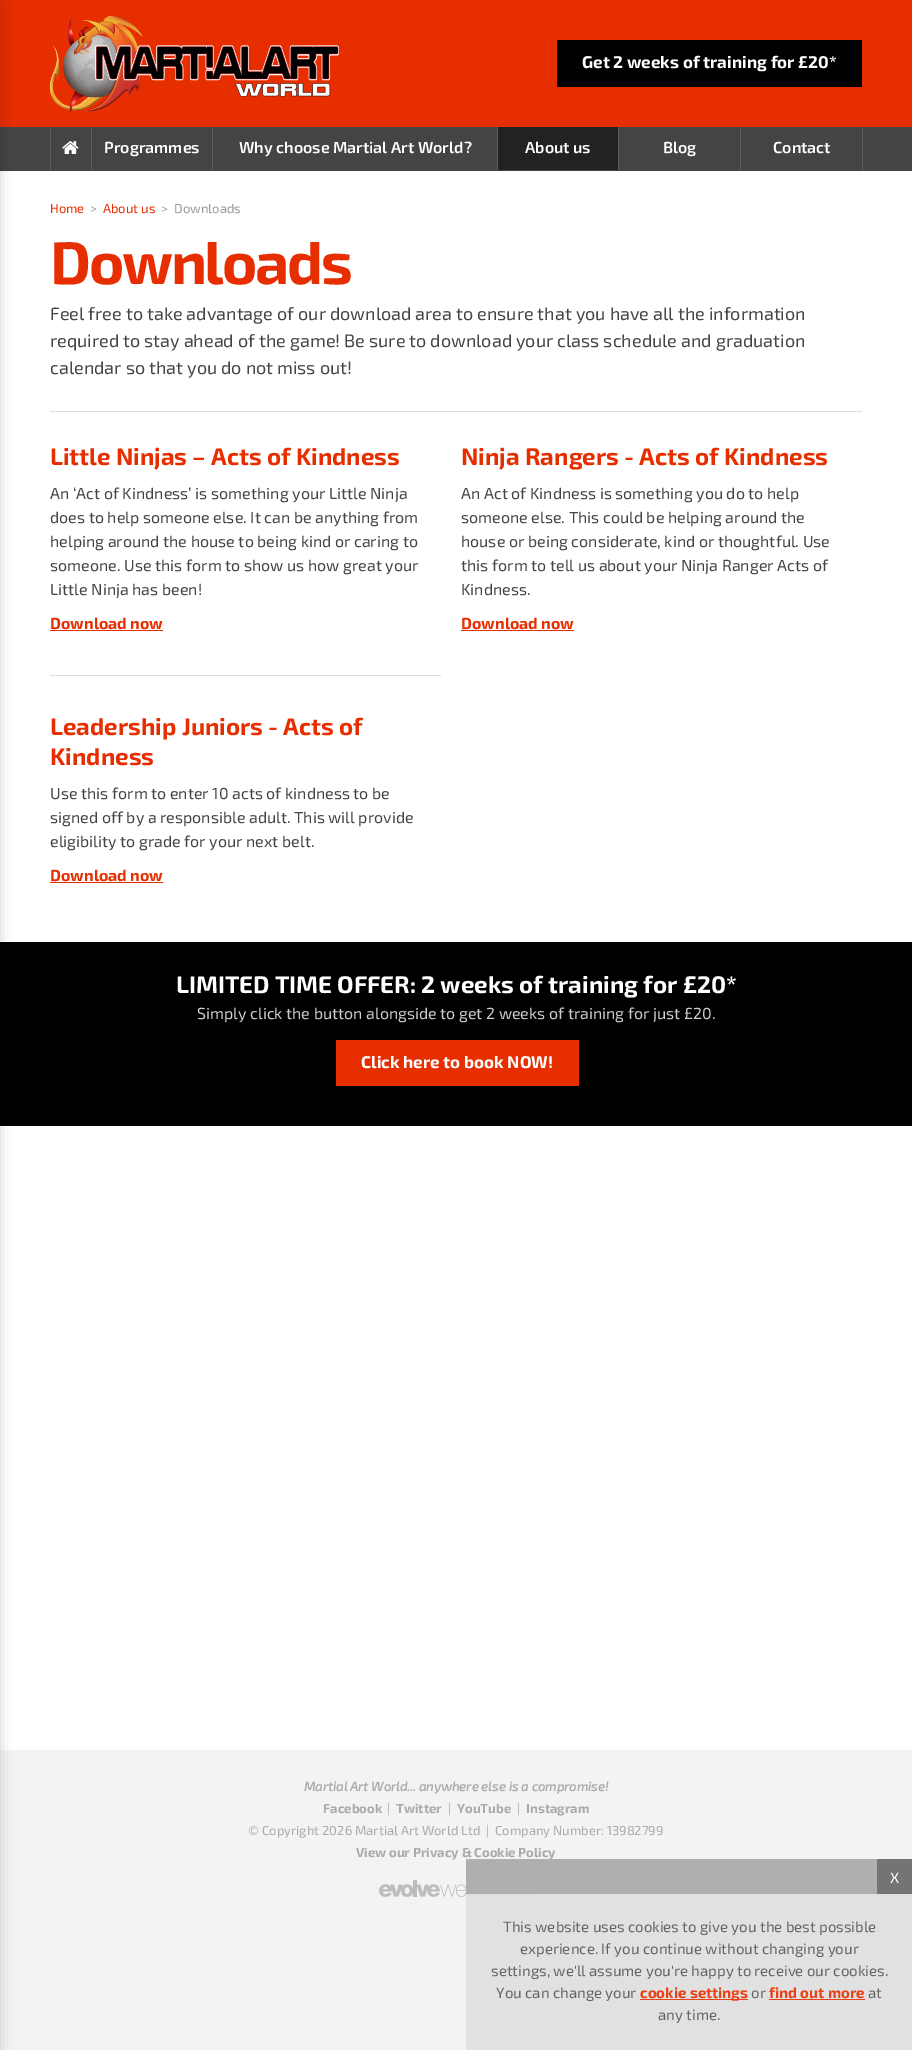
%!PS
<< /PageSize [912 2050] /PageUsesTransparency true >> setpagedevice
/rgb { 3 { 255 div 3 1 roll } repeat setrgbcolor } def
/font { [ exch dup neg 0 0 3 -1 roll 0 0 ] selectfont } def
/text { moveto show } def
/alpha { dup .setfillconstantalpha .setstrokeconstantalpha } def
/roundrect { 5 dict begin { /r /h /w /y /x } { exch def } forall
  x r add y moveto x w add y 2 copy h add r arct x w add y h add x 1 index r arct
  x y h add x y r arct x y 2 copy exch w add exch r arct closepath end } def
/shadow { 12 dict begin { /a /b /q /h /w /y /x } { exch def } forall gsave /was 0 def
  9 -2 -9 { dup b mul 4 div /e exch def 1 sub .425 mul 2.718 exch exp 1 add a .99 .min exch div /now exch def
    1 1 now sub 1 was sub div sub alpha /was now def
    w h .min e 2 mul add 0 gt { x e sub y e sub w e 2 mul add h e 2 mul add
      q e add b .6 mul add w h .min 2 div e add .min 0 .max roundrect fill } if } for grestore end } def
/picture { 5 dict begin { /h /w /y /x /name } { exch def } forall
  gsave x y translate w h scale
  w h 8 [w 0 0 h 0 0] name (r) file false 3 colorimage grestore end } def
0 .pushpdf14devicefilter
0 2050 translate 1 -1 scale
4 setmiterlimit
255 255 255 rgb
0 0 912 2050 rectfill
230 46 0 rgb
0 0 912 127 rectfill
68 68 68 rgb
0 127 912 44 rectfill
0 0 0 rgb
0 942 912 184 rectfill
243 243 243 rgb
0 1750 912 300 rectfill
0 0 0 rgb
-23 0 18 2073 0 7.5 0.35 shadow
(img_01.rgb) 50 16 289 97 picture
557 40 305 47 rectfill
94 94 94 rgb
862 127 1 44 rectfill
50 127 1 43 rectfill
(img_02.rgb) 62 141 17 13 picture
91 127 1 43 rectfill
212 127 1 43 rectfill
34 34 34 rgb
498 127 120 43 rectfill
94 94 94 rgb
497 127 1 43 rectfill
618 127 1 43 rectfill
740 127 1 43 rectfill
221 221 221 rgb
50 411 812 1 rectfill
230 46 0 rgb
50 630 113 1 rectfill
461 630 113 1 rectfill
221 221 221 rgb
50 675 391 1 rectfill
230 46 0 rgb
50 882 113 1 rectfill
336 1040 243 46 rectfill
(img_03.rgb) 379 1880 154 17 picture
0.9 alpha
223 223 223 rgb
466 1860 446 190 rectfill
1 alpha
116 116 116 rgb
877 1859 35 35 rectfill
231 66 24 rgb
640 1999 108 1 rectfill
769 1999 96 1 rectfill
/Exo2-Bold 17 font
255 255 255 rgb
(Get 2 weeks of training for £20*) 582 68 text
/Exo2-SemiBold 16 font
(Programmes) 104 153 text
(Why choose Martial Art World?) 239 153 text
(About us) 525 153 text
(Blog) 663 153 text
(Contact) 773 153 text
/Exo2-Regular 13 font
230 46 0 rgb
(Home) 50 213 text
153 153 153 rgb
(>) 90 213 text
230 46 0 rgb
(About us) 103 213 text
153 153 153 rgb
(>) 161 213 text
(Downloads) 174 213 text
/Exo2-Bold 60 font
230 46 0 rgb
50 284 moveto -2.25 0 (Downloads) ashow
/Exo2-Regular 18 font
68 68 68 rgb
(Feel free to take advantage of our download area to ensure that you have all the information) 50 320 text
(required to stay ahead of the game! Be sure to download your class schedule and graduation) 50 347 text
(calendar so that you do not miss out!) 50 374 text
/Exo2-Bold 24 font
230 46 0 rgb
(Little Ninjas – Acts of Kindness) 50 465 text
/Exo2-Regular 16 font
68 68 68 rgb
(An ‘Act of Kindness’ is something your Little Ninja) 50 499 text
(does to help someone else. It can be anything from) 50 523 text
(helping around the house to being kind or caring to) 50 547 text
(someone. Use this form to show us how great your) 50 571 text
(Little Ninja has been!) 50 595 text
/Exo2-Bold 16 font
230 46 0 rgb
(Download now) 50 629 text
/Exo2-Bold 24 font
(Ninja Rangers - Acts of Kindness) 461 465 text
/Exo2-Regular 16 font
68 68 68 rgb
(An Act of Kindness is something you do to help) 461 499 text
(someone else. This could be helping around the) 461 523 text
(house or being considerate, kind or thoughtful. Use) 461 547 text
(this form to tell us about your Ninja Ranger Acts of) 461 571 text
(Kindness.) 461 595 text
/Exo2-Bold 16 font
230 46 0 rgb
(Download now) 461 629 text
/Exo2-Bold 24 font
(Leadership Juniors - Acts of) 50 735 text
(Kindness) 50 765 text
/Exo2-Regular 16 font
68 68 68 rgb
(Use this form to enter 10 acts of kindness to be) 50 799 text
(signed off by a responsible adult. This will provide) 50 823 text
(eligibility to grade for your next belt.) 50 847 text
/Exo2-Bold 16 font
230 46 0 rgb
(Download now) 50 881 text
/Exo2-Bold 24 font
255 255 255 rgb
(LIMITED TIME OFFER: 2 weeks of training for £20*) 176 993 text
/Exo2-Regular 16 font
204 204 204 rgb
(Simply click the button alongside to get 2 weeks of training for just £20.) 197 1019 text
/Exo2-Bold 17 font
255 255 255 rgb
(Click here to book NOW!) 361 1068 text
/Exo2-BoldItalic 13 font
170 170 170 rgb
(Martial Art World... anywhere else is a compromise!) 304 1791 text
/Exo2-Bold 13 font
(Facebook) 323 1813 text
/Exo2-Regular 13 font
(|) 387 1813 text
/Exo2-Bold 13 font
(Twitter) 396 1813 text
/Exo2-Regular 13 font
(|) 448 1813 text
/Exo2-Bold 13 font
(YouTube) 457 1813 text
/Exo2-Regular 13 font
(|) 517 1813 text
/Exo2-Bold 13 font
(Instagram) 526 1813 text
/Exo2-Regular 13 font
(© Copyright 2026 Martial Art World Ltd) 248 1835 text
(|) 486 1835 text
(Company Number: 13982799) 495 1835 text
/Exo2-Bold 13 font
(View our Privacy & Cookie Policy) 356 1857 text
0.9 alpha
466 1859 411 35 rectfill
/Exo2-Regular 15 font
1 alpha
255 255 255 rgb
(X) 890 1883 text
101 101 101 rgb
(This website uses cookies to give you the best possible) 503 1932 text
(experience. If you continue without changing your) 520 1954 text
(settings, we'll assume you're happy to receive our cookies.) 491 1976 text
(You can change your) 496 1998 text
/Exo2-Bold 15 font
231 66 24 rgb
(cookie settings) 640 1998 text
/Exo2-Regular 15 font
101 101 101 rgb
(or) 751 1998 text
/Exo2-Bold 15 font
231 66 24 rgb
(find out more) 769 1998 text
/Exo2-Regular 15 font
101 101 101 rgb
(at) 868 1998 text
(any time.) 658 2020 text
.poppdf14devicefilter showpage
